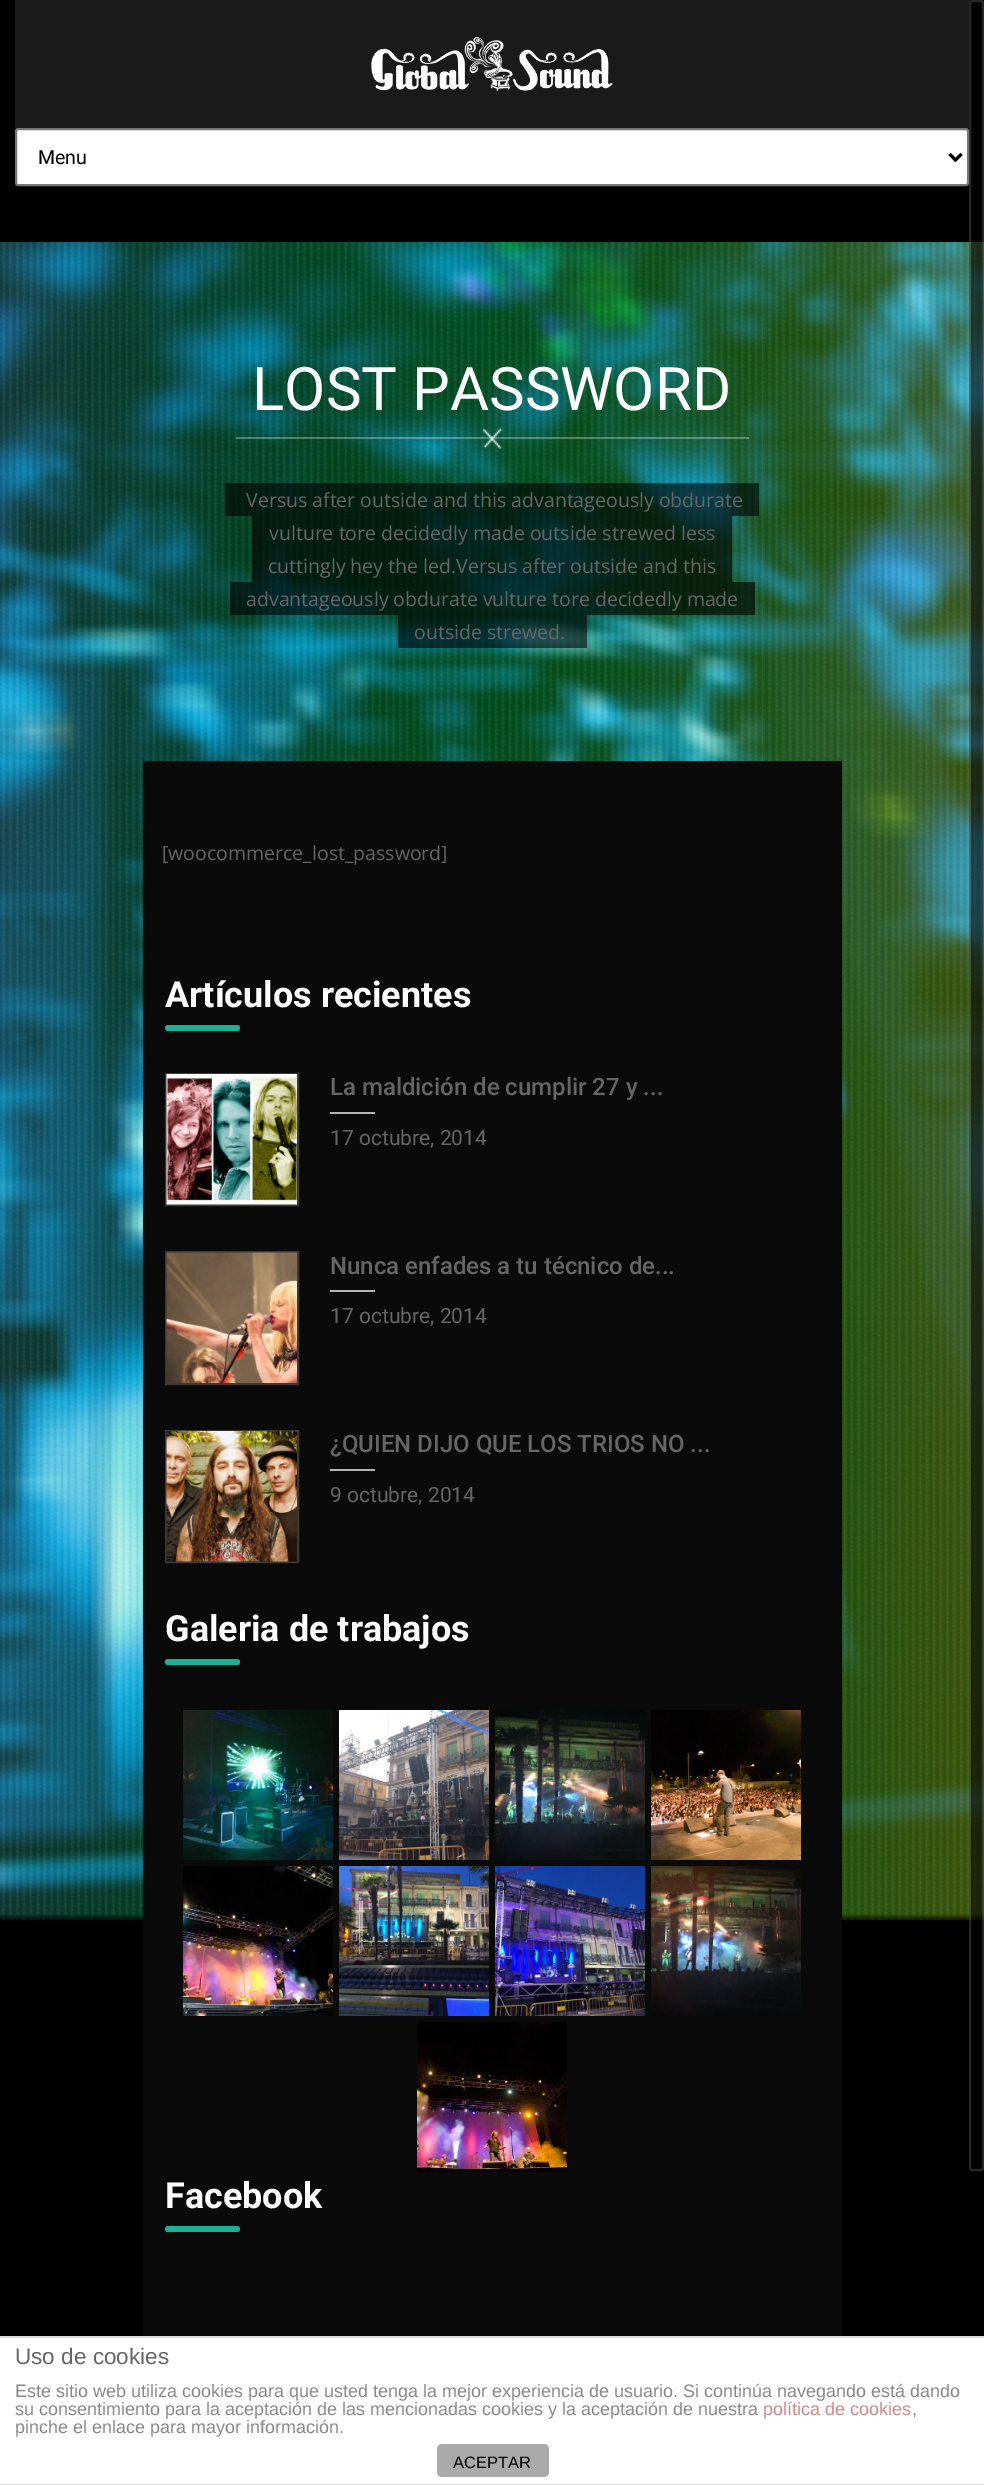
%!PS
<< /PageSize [984 2485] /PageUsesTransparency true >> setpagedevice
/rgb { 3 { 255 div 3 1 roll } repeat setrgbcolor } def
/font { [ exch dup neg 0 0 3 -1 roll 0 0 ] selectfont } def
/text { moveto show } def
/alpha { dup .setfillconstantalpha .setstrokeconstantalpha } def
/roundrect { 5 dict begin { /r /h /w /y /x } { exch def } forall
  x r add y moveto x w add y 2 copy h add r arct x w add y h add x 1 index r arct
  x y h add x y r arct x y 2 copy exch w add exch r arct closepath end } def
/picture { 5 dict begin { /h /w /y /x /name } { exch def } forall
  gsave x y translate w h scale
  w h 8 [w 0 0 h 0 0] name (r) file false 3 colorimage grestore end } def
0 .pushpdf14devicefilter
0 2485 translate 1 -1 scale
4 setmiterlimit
0 0 0 rgb
0 0 984 2485 rectfill
(img_01.rgb) 0 242 984 1679 picture
26 26 26 rgb
15 0 954 128 rectfill
(img_02.rgb) 371 37 242 54 picture
255 255 255 rgb
16 129 952 56 2 roundrect gsave fill grestore
118 118 118 rgb
2 setlinewidth
stroke
0 0 0 rgb
3 setlinewidth
949.5 154 moveto 6 6 rlineto 6 -6 rlineto stroke
0.3 alpha
255 255 255 rgb
236 437 513 2 rectfill
1 alpha
(img_03.rgb) 482 427 21 22 picture
0.6 alpha
0 0 0 rgb
743 483 16 33 rectfill
225 483 17 33 rectfill
242 483 501 33 rectfill
716 516 16 33 rectfill
252 516 17 33 rectfill
269 516 447 33 rectfill
716 549 16 33 rectfill
252 549 17 33 rectfill
269 549 447 33 rectfill
738 582 17 33 rectfill
230 582 16 33 rectfill
246 582 492 33 rectfill
570 615 17 33 rectfill
398 615 16 33 rectfill
414 615 156 33 rectfill
1 alpha
10 10 10 rgb
143 761 699 1575 rectfill
26 178 148 rgb
165 1025 75 6 3 roundrect fill
59 56 53 rgb
2 setlinewidth
166 1074 132 131 rectstroke
(img_04.rgb) 166 1074 131 131 picture
181 181 181 rgb
330 1112 45 2 rectfill
59 56 53 rgb
166 1252 132 132 rectstroke
(img_05.rgb) 166 1252 131 131 picture
181 181 181 rgb
330 1290 45 2 rectfill
59 56 53 rgb
166 1431 132 131 rectstroke
(img_06.rgb) 166 1431 131 131 picture
181 181 181 rgb
330 1469 45 2 rectfill
26 178 148 rgb
165 1659 75 6 3 roundrect fill
(img_07.rgb) 183 1710 150 150 picture
(img_08.rgb) 339 1710 150 150 picture
(img_09.rgb) 495 1710 150 150 picture
(img_10.rgb) 651 1710 150 150 picture
(img_11.rgb) 183 1866 150 150 picture
(img_12.rgb) 339 1866 150 150 picture
(img_13.rgb) 495 1866 150 150 picture
(img_14.rgb) 651 1866 150 150 picture
(img_15.rgb) 417 2022 150 150 picture
165 2226 75 6 3 roundrect fill
0.57 alpha
0 0 0 rgb
971 2 12 2167 1.5 roundrect fill
68 68 68 rgb
970 1 13 2169 2 roundrect stroke
1 alpha
255 255 255 rgb
0 2338 984 146 rectfill
221 221 221 rgb
0 2336 984 2 rectfill
0 2484 984 1 rectfill
170 170 170 rgb
437 2444 112 33 5 roundrect fill
/Roboto-Regular 19.5 font
0 0 0 rgb
(Menu) 38 164 text
/Roboto-Regular 60 font
255 255 255 rgb
(LOST PASSWORD) 252 410 text
/OpenSans-Regular 19.5 font
102 102 102 rgb
(Versus after outside and this advantageously obdurate) 246 507 text
(vulture tore decidedly made outside strewed less) 269 540 text
(cuttingly hey the led.Versus after outside and this) 268 573 text
(advantageously obdurate vulture tore decidedly made) 246 606 text
(outside strewed.) 414 639 text
([woocommerce_lost_password]) 162 860 text
/Roboto-Bold 36 font
255 255 255 rgb
(Artículos recientes) 165 1007 text
/Roboto-Medium 24 font
102 102 102 rgb
(La maldición de cumplir 27 y ...) 330 1095 text
/Roboto-Regular 21 font
(17 octubre, 2014) 330 1145 text
/Roboto-Medium 24 font
(Nunca enfades a tu técnico de...) 330 1274 text
/Roboto-Regular 21 font
(17 octubre, 2014) 330 1323 text
/Roboto-Medium 24 font
(¿QUIEN DIJO QUE LOS TRIOS NO ...) 330 1452 text
/Roboto-Regular 21 font
(9 octubre, 2014) 330 1502 text
/Roboto-Bold 36 font
255 255 255 rgb
(Galeria de trabajos) 165 1641 text
(Facebook) 165 2208 text
/LiberationSans-Regular 22.5 font
102 102 102 rgb
(Uso de cookies) 15 2364 text
/LiberationSans-Regular 18 font
136 136 136 rgb
(Este sitio web utiliza cookies para que usted tenga la mejor experiencia de usuario. Si continúa navegando está dando) 15 2397 text
(su consentimiento para la aceptación de las mencionadas cookies y la aceptación de nuestra) 15 2415 text
204 136 136 rgb
(política de cookies) 763 2415 text
136 136 136 rgb
(,) 912 2415 text
(pinche el enlace para mayor información.) 15 2433 text
/LiberationSans-Regular 16.5 font
0 0 0 rgb
(ACEPTAR) 453 2468 text
.poppdf14devicefilter showpage
